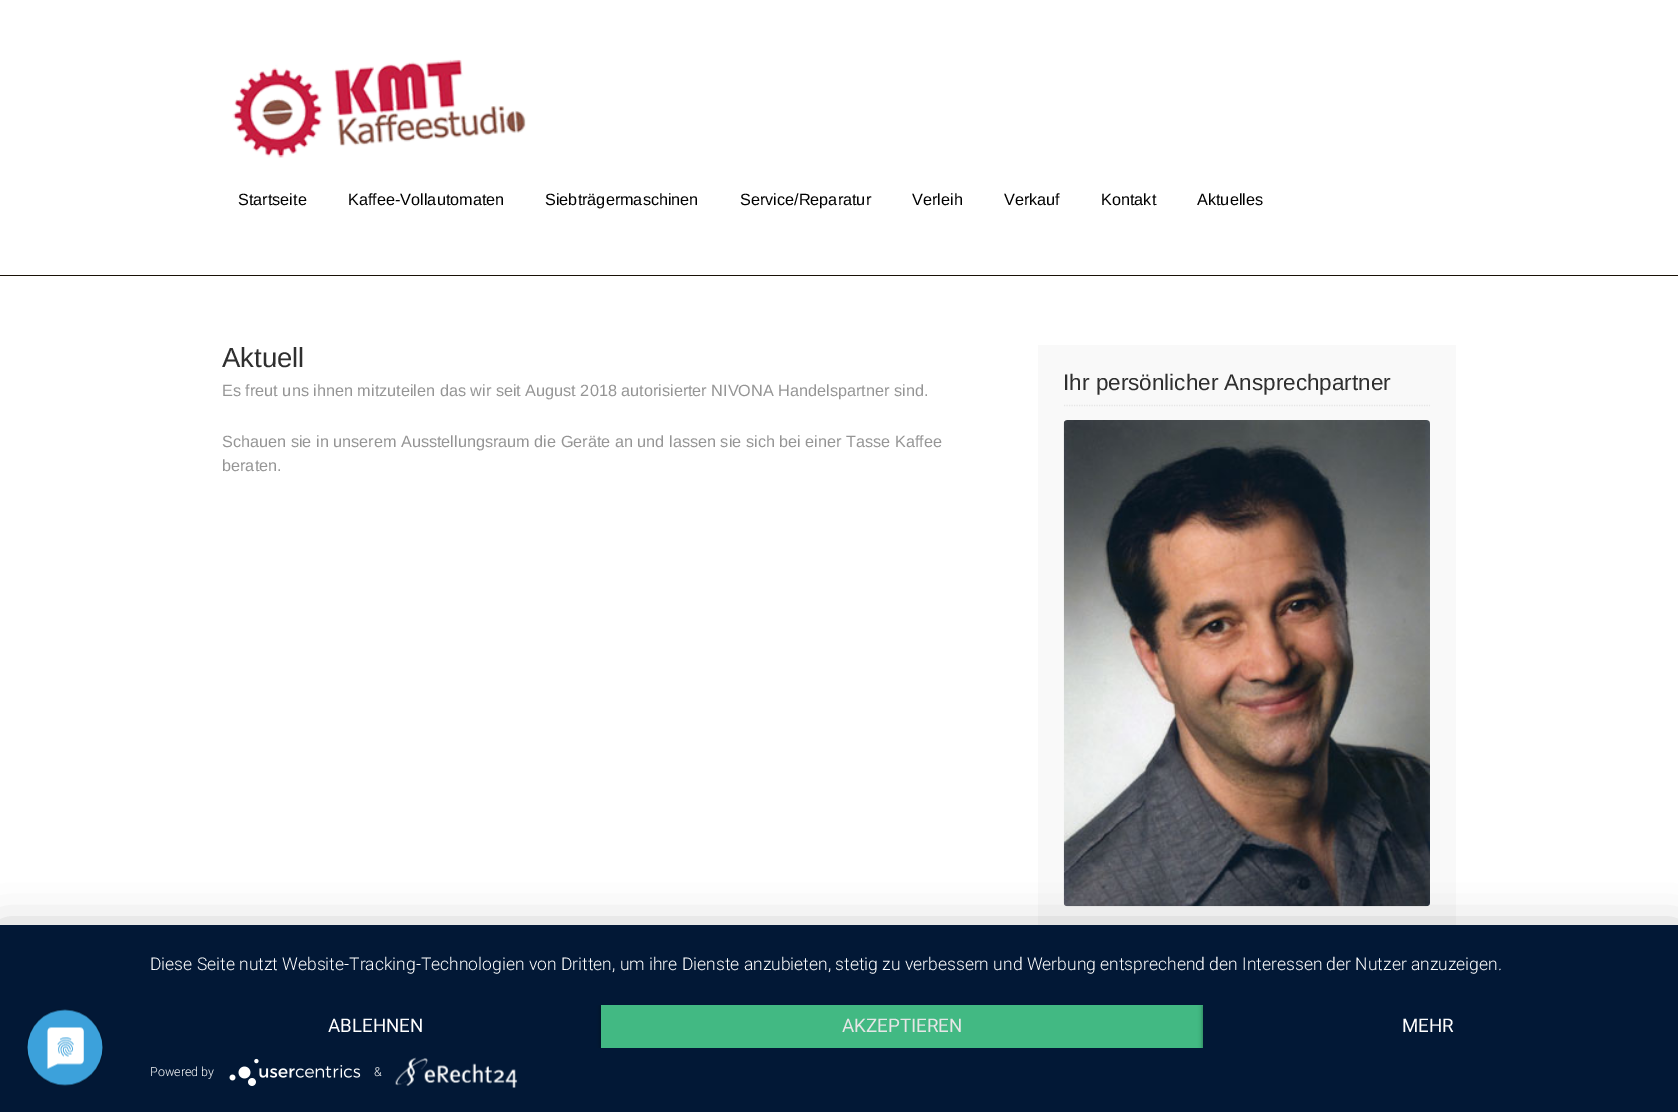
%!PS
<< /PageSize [1678 1112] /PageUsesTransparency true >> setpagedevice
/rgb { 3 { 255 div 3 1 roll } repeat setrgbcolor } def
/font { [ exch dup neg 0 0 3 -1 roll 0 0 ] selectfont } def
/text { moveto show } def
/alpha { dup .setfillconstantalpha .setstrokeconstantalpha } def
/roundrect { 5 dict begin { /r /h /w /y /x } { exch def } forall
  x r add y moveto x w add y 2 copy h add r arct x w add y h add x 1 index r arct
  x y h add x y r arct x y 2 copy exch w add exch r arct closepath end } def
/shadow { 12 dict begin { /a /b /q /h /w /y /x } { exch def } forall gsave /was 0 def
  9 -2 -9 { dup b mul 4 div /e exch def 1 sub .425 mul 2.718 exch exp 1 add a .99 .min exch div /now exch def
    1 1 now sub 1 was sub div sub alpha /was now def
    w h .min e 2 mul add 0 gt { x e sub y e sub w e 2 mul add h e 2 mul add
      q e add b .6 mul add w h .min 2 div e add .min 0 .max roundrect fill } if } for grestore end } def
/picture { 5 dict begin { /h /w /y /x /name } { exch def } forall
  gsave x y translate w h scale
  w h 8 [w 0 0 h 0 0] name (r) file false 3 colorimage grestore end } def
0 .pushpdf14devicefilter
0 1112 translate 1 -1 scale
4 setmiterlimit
255 255 255 rgb
0 0 1678 1112 rectfill
24 17 6 rgb
0 275 1678 1 rectfill
(img_01.rgb) 232 59 294 99 picture
249 249 249 rgb
1038 345 418 580 rectfill
230 230 230 rgb
1.2 setlinewidth
[1.25 1.25] 0 setdash
1064 405.5 moveto 366 0 rlineto stroke
(img_02.rgb) 1063 420 367 487 picture
0 0 0 rgb
0 933 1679 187 0 22.5 0.3 shadow
2 24 54 rgb
0 925 1678 187 rectfill
(img_03.rgb) 26 1009 78 77 picture
gsave
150 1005 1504 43 rectclip
0 0 0 rgb
601 1006 602 43 0 2.5 0.4 shadow
grestore
66 185 131 rgb
601 1005 602 43 rectfill
gsave
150 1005 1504 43 rectclip
0 0 0 rgb
1203 1006 451 43 0 2.5 0.4 shadow
grestore
2 24 54 rgb
1203 1005 451 43 rectfill
(img_04.rgb) 229 1058 132 28 picture
(img_05.rgb) 395 1057 123 31 picture
/LiberationSans-Regular 16.25 font
0 0 0 rgb
(Startseite) 238 205 text
(Kaffee-Vollautomaten) 348 205 text
(Siebträgermaschinen) 545 205 text
(Service/Reparatur) 740 205 text
(Verleih) 912 205 text
(Verkauf) 1004 205 text
(Kontakt) 1101 205 text
(Aktuelles) 1197 205 text
/LiberationSans-Regular 27.5 font
47 47 47 rgb
(Aktuell) 222 367 text
/LiberationSans-Regular 16.25 font
149 149 149 rgb
(Es freut uns ihnen mitzuteilen das wir seit August 2018 autorisierter NIVONA Handelspartner sind.) 222 396 text
(Schauen sie in unserem Ausstellungsraum die Geräte an und lassen sie sich bei einer Tasse Kaffee) 222 447 text
(beraten.) 222 471 text
/LiberationSans-Regular 22.5 font
47 47 47 rgb
(Ihr persönlicher Ansprechpartner) 1063 390 text
/Roboto-Light 17.5 font
255 255 255 rgb
(Diese Seite nutzt Website-Tracking-Technologien von Dritten, um ihre Dienste anzubieten, stetig zu verbessern und Werbung entsprechend den Interessen der Nutzer anzuzeigen.) 150 970 text
/Roboto-Regular 18.75 font
(ABLEHNEN) 328 1032 text
230 230 230 rgb
(AKZEPTIEREN) 842 1032 text
255 255 255 rgb
(MEHR) 1402 1032 text
/Roboto-Light 12.5 font
(Powered by) 150 1076 text
(&) 374 1076 text
.poppdf14devicefilter showpage
